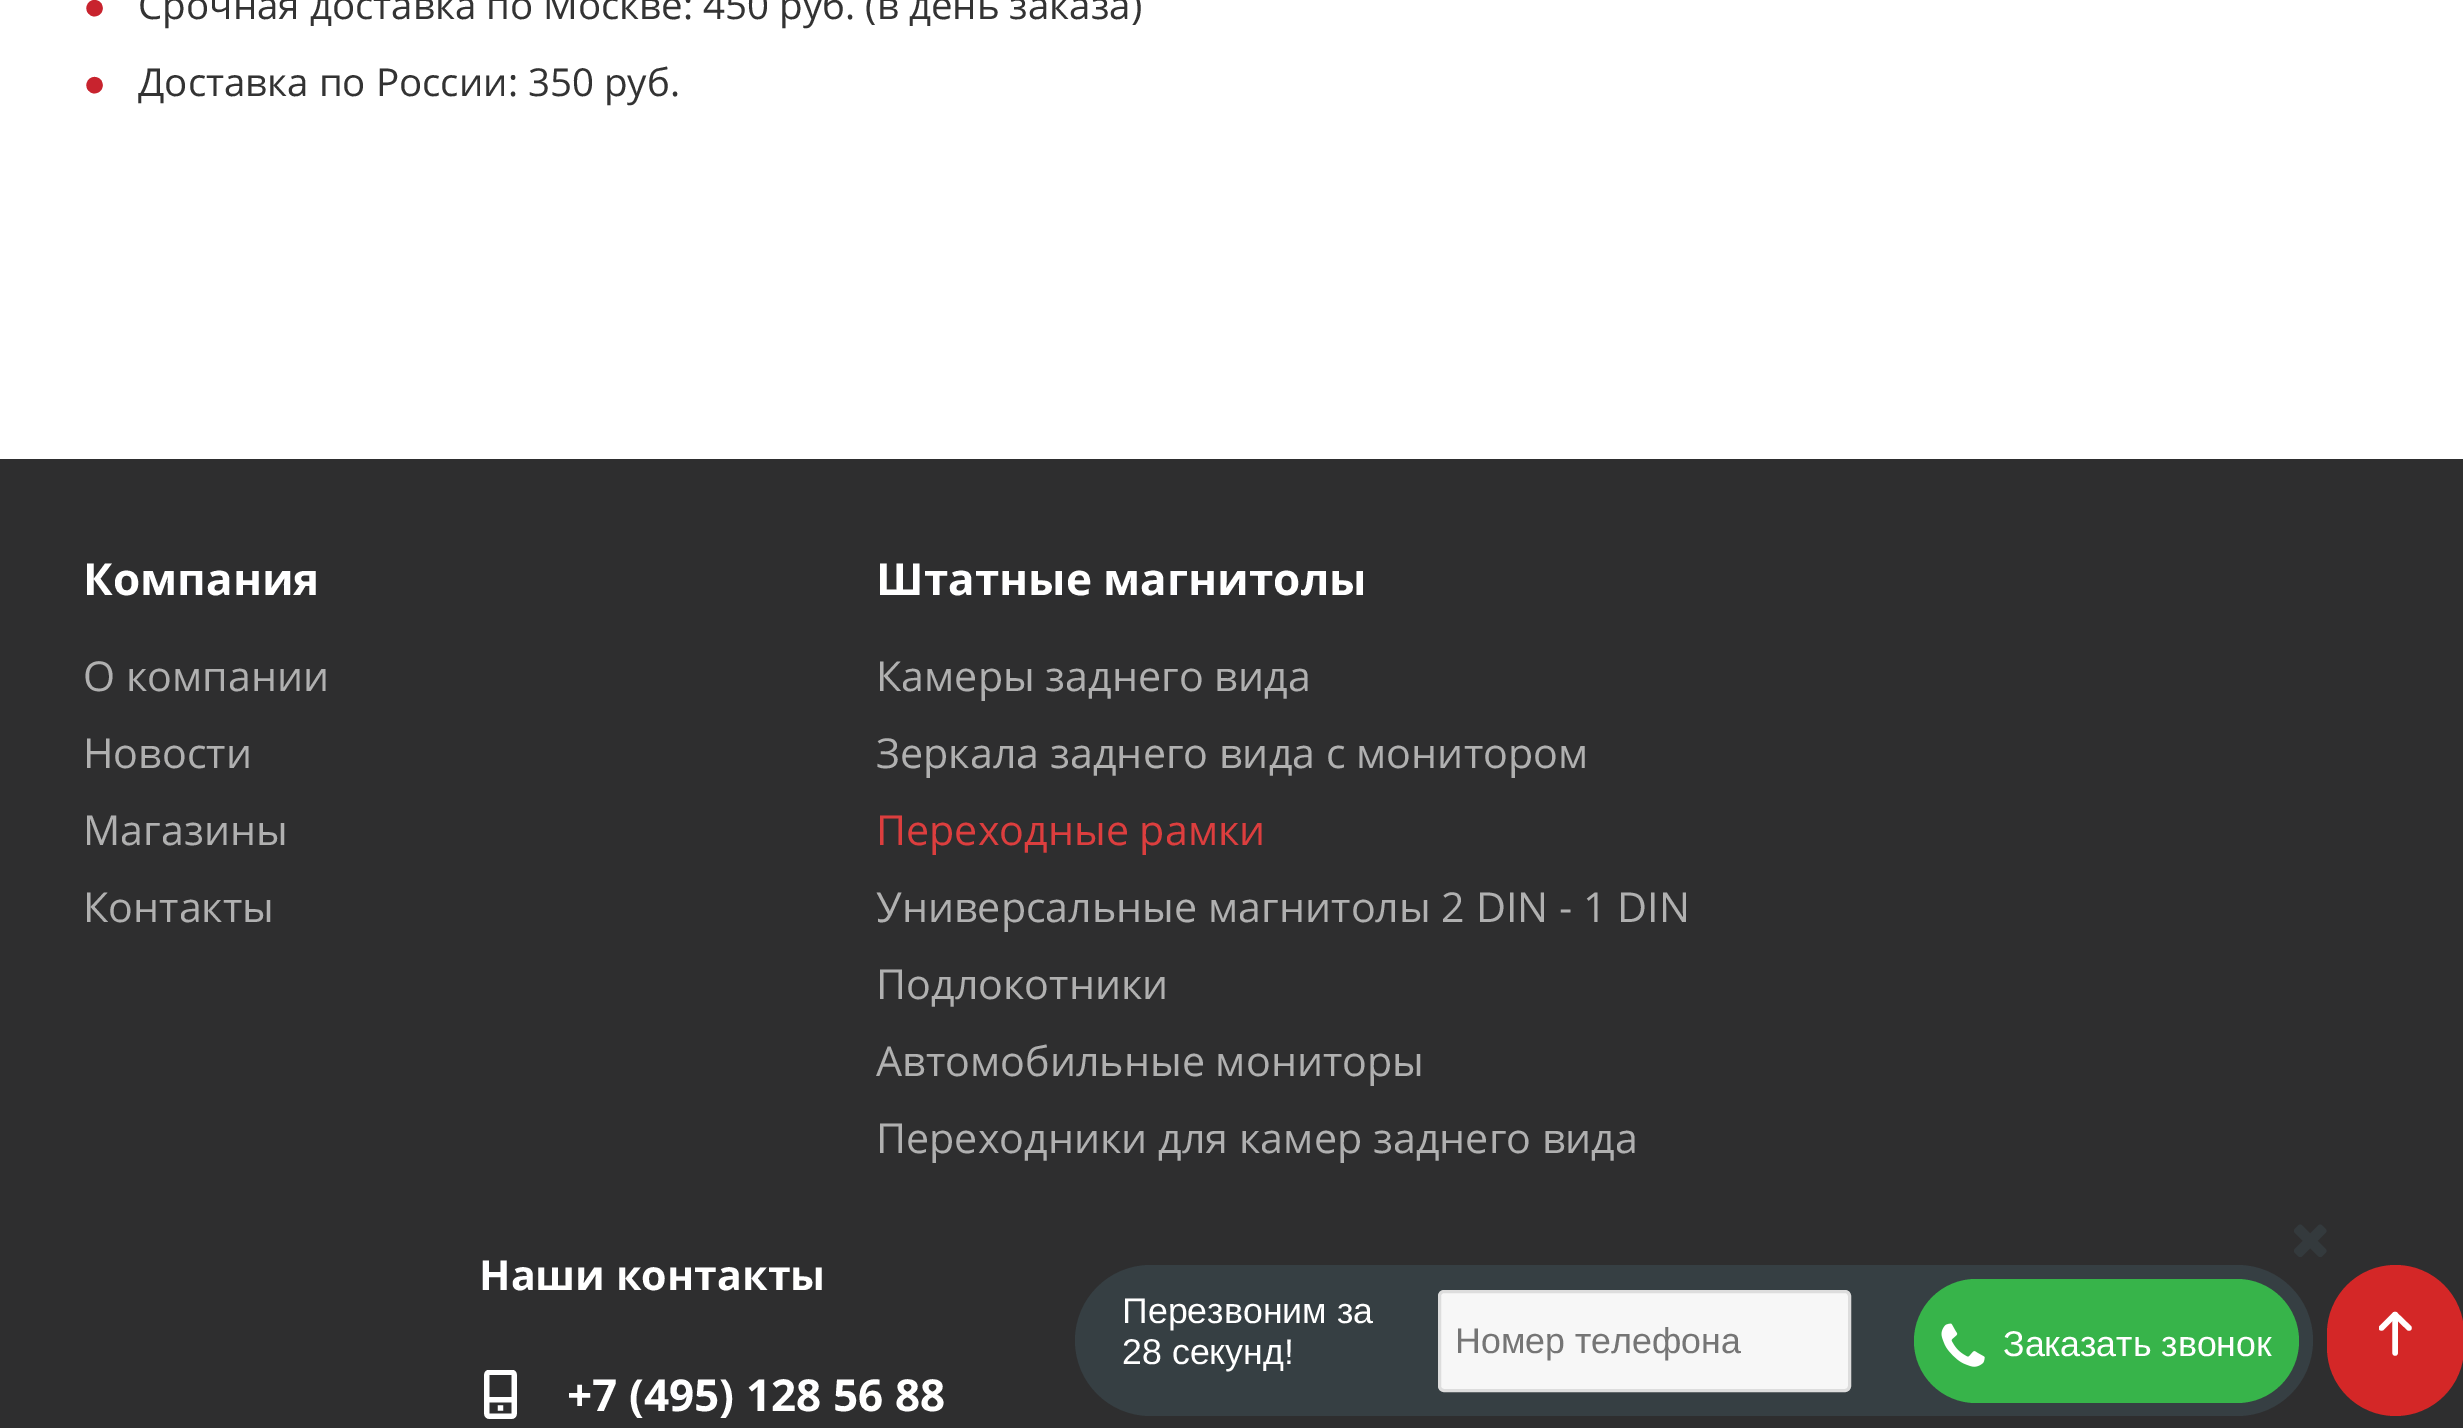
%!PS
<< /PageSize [2463 1428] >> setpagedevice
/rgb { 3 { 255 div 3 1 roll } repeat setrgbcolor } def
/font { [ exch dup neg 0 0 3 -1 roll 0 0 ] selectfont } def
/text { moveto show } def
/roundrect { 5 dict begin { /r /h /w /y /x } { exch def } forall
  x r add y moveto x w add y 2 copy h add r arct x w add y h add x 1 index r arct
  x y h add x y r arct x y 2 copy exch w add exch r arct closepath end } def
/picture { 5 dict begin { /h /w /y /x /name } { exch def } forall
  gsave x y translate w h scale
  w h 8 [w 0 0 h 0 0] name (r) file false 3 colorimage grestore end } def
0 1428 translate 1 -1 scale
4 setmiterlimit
46 46 47 rgb
0 0 2463 1428 rectfill
255 255 255 rgb
0 0 2463 459 rectfill
(img_01.rgb) 484 1370 33 49 picture
(img_02.rgb) 2294 1224 33 33 picture
54 63 67 rgb
1075 1265 1238 151 75.5 roundrect fill
247 247 247 rgb
1439.5 1291.5 410 99 4.5 roundrect gsave fill grestore
221 221 221 rgb
3 setlinewidth
stroke
55 180 74 rgb
1914 1279 385 124 62 roundrect fill
(img_03.rgb) 1941 1323 44 44 picture
212 39 39 rgb
2327 1265 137 151 68.5 roundrect fill
255 255 255 rgb
5.5 setlinewidth
1 setlinecap
1 setlinejoin
2395 1314.5 moveto 0 38.5 rlineto stroke
gsave
2379 1312 33 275 rectclip
2381.5 1328 moveto 13.5 -13.5 rlineto 14 13.5 rlineto stroke
grestore
/LiberationSans-Regular 38.5 font
200 35 46 rgb
(●) 83 19 text
/OpenSans-Regular 38.5 font
51 51 51 rgb
(Срочная доставка по Москве: 450 руб. \(в день заказа\)) 138 19 text
/LiberationSans-Regular 38.5 font
200 35 46 rgb
(●) 83 96 text
/OpenSans-Regular 38.5 font
51 51 51 rgb
(Доставка по России: 350 руб.) 138 96 text
/OpenSans-Bold 44.1 font
255 255 255 rgb
(Компания) 83 595 text
/OpenSans-Regular 41.25 font
176 176 176 rgb
(О компании) 83 691 text
(Новости) 83 768 text
(Магазины) 83 845 text
(Контакты) 83 922 text
/OpenSans-Bold 44.1 font
255 255 255 rgb
(Штатные магнитолы) 876 595 text
/OpenSans-Regular 41.25 font
176 176 176 rgb
(Камеры заднего вида) 876 691 text
(Зеркала заднего вида с монитором) 876 768 text
220 62 62 rgb
(Переходные рамки) 876 845 text
176 176 176 rgb
(Универсальные магнитолы 2 DIN - 1 DIN) 876 922 text
(Подлокотники) 876 999 text
(Автомобильные мониторы) 876 1076 text
(Переходники для камер заднего вида) 876 1153 text
/OpenSans-Bold 41.25 font
255 255 255 rgb
(Наши контакты) 479 1290 text
/OpenSans-Bold 44.1 font
(+7 \(495\) 128 56 88) 567 1411 text
/LiberationSans-Regular 35.75 font
(Перезвоним за) 1122 1323 text
(28 секунд!) 1122 1364 text
117 117 117 rgb
(Номер телефона) 1455 1353 text
255 255 255 rgb
(Заказать звонок) 2003 1356 text
showpage
